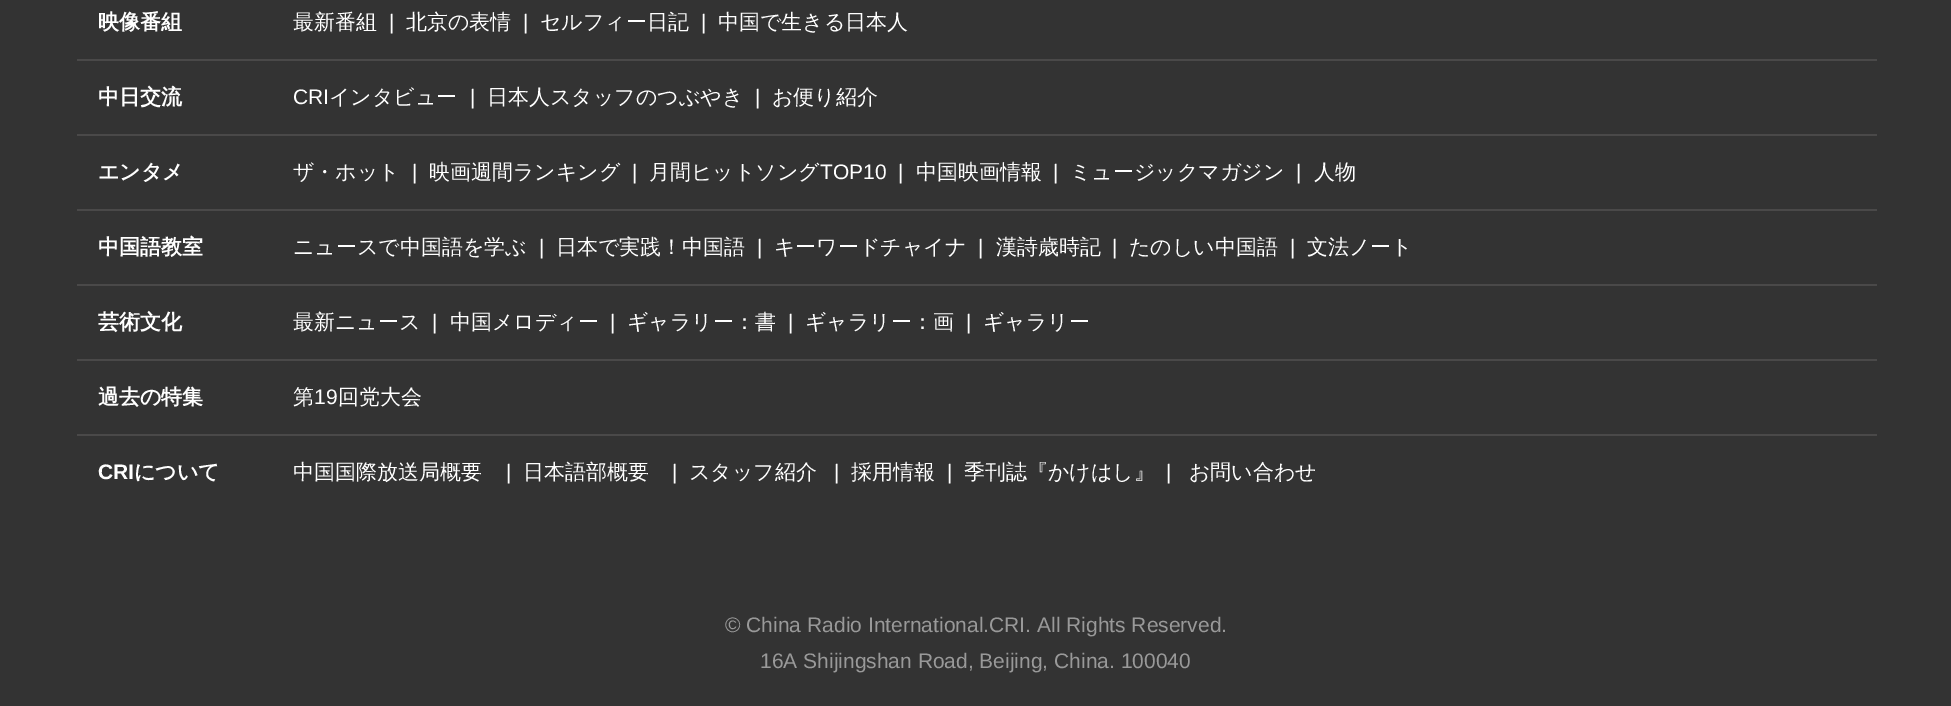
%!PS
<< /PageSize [1951 706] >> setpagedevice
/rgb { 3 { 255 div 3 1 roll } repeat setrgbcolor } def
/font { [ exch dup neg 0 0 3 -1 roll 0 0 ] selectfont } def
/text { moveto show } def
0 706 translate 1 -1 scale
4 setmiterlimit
51 51 51 rgb
0 0 1951 706 rectfill
74 73 73 rgb
77 59 1800 2 rectfill
77 134 1800 2 rectfill
77 209 1800 2 rectfill
77 284 1800 2 rectfill
77 359 1800 2 rectfill
77 434 1800 2 rectfill
/WenQuanYiZenHei-Bold 21 font
255 255 255 rgb
(映像番組) 98 29 text
/WenQuanYiZenHei-Medium 21 font
(最新番組) 293 29 text
/LiberationSans-Regular 21 font
(|) 389 29 text
/WenQuanYiZenHei-Medium 21 font
(北京の表情) 406 29 text
/LiberationSans-Regular 21 font
(|) 523 29 text
/WenQuanYiZenHei-Medium 21 font
(セルフィー日記) 540 29 text
/LiberationSans-Regular 21 font
(|) 701 29 text
/WenQuanYiZenHei-Medium 21 font
(中国で生きる日本人) 718 29 text
/WenQuanYiZenHei-Bold 21 font
(中日交流) 98 104 text
/LiberationSans-Regular 21 font
(CRI) 293 104 text
/WenQuanYiZenHei-Medium 21 font
(インタビュー) 329 104 text
/LiberationSans-Regular 21 font
(|) 470 104 text
/WenQuanYiZenHei-Medium 21 font
(日本人スタッフのつぶやき) 487 104 text
/LiberationSans-Regular 21 font
(|) 755 104 text
/WenQuanYiZenHei-Medium 21 font
(お便り紹介) 772 104 text
/WenQuanYiZenHei-Bold 21 font
(エンタメ) 98 179 text
/WenQuanYiZenHei-Medium 21 font
(ザ・ホット) 293 179 text
/LiberationSans-Regular 21 font
(|) 412 179 text
/WenQuanYiZenHei-Medium 21 font
(映画週間ランキング) 429 179 text
/LiberationSans-Regular 21 font
(|) 632 179 text
/WenQuanYiZenHei-Medium 21 font
(月間ヒットソング) 649 179 text
/LiberationSans-Regular 21 font
(TOP10) 820 179 text
(|) 898 179 text
/WenQuanYiZenHei-Medium 21 font
(中国映画情報) 916 179 text
/LiberationSans-Regular 21 font
(|) 1053 179 text
/WenQuanYiZenHei-Medium 21 font
(ミュージックマガジン) 1070 179 text
/LiberationSans-Regular 21 font
(|) 1296 179 text
/WenQuanYiZenHei-Medium 21 font
(人物) 1314 179 text
/WenQuanYiZenHei-Bold 21 font
(中国語教室) 98 254 text
/WenQuanYiZenHei-Medium 21 font
(ニュースで中国語を学ぶ) 293 254 text
/LiberationSans-Regular 21 font
(|) 539 254 text
/WenQuanYiZenHei-Medium 21 font
(日本で実践！中国語) 556 254 text
/LiberationSans-Regular 21 font
(|) 757 254 text
/WenQuanYiZenHei-Medium 21 font
(キーワードチャイナ) 774 254 text
/LiberationSans-Regular 21 font
(|) 978 254 text
/WenQuanYiZenHei-Medium 21 font
(漢詩歳時記) 996 254 text
/LiberationSans-Regular 21 font
(|) 1112 254 text
/WenQuanYiZenHei-Medium 21 font
(たのしい中国語) 1129 254 text
/LiberationSans-Regular 21 font
(|) 1290 254 text
/WenQuanYiZenHei-Medium 21 font
(文法ノート) 1307 254 text
/WenQuanYiZenHei-Bold 21 font
(芸術文化) 98 329 text
/WenQuanYiZenHei-Medium 21 font
(最新ニュース) 293 329 text
/LiberationSans-Regular 21 font
(|) 432 329 text
/WenQuanYiZenHei-Medium 21 font
(中国メロディー) 450 329 text
/LiberationSans-Regular 21 font
(|) 610 329 text
/WenQuanYiZenHei-Medium 21 font
(ギャラリー：書) 627 329 text
/LiberationSans-Regular 21 font
(|) 788 329 text
/WenQuanYiZenHei-Medium 21 font
(ギャラリー：画) 805 329 text
/LiberationSans-Regular 21 font
(|) 966 329 text
/WenQuanYiZenHei-Medium 21 font
(ギャラリー) 983 329 text
/WenQuanYiZenHei-Bold 21 font
(過去の特集) 98 404 text
/WenQuanYiZenHei-Medium 21 font
(第) 293 404 text
/LiberationSans-Regular 21 font
(19) 314 404 text
/WenQuanYiZenHei-Medium 21 font
(回党大会) 338 404 text
/LiberationSans-Bold 21 font
(CRI) 98 479 text
/WenQuanYiZenHei-Bold 21 font
(について) 134 479 text
/WenQuanYiZenHei-Medium 21 font
(中国国際放送局概要) 293 479 text
/LiberationSans-Regular 21 font
(|) 506 479 text
/WenQuanYiZenHei-Medium 21 font
(日本語部概要) 523 479 text
/LiberationSans-Regular 21 font
(|) 672 479 text
/WenQuanYiZenHei-Medium 21 font
(スタッフ紹介) 689 479 text
/LiberationSans-Regular 21 font
(|) 834 479 text
/WenQuanYiZenHei-Medium 21 font
(採用情報) 851 479 text
/LiberationSans-Regular 21 font
(|) 947 479 text
/WenQuanYiZenHei-Medium 21 font
(季刊誌『かけはし』) 964 479 text
/LiberationSans-Regular 21 font
(|) 1166 479 text
/WenQuanYiZenHei-Medium 21 font
(お問い合わせ) 1189 479 text
/LiberationSans-Regular 21 font
153 153 153 rgb
(© China Radio International.CRI. All Rights Reserved.) 725 632 text
(16A Shijingshan Road, Beijing, China. 100040) 760 668 text
showpage
